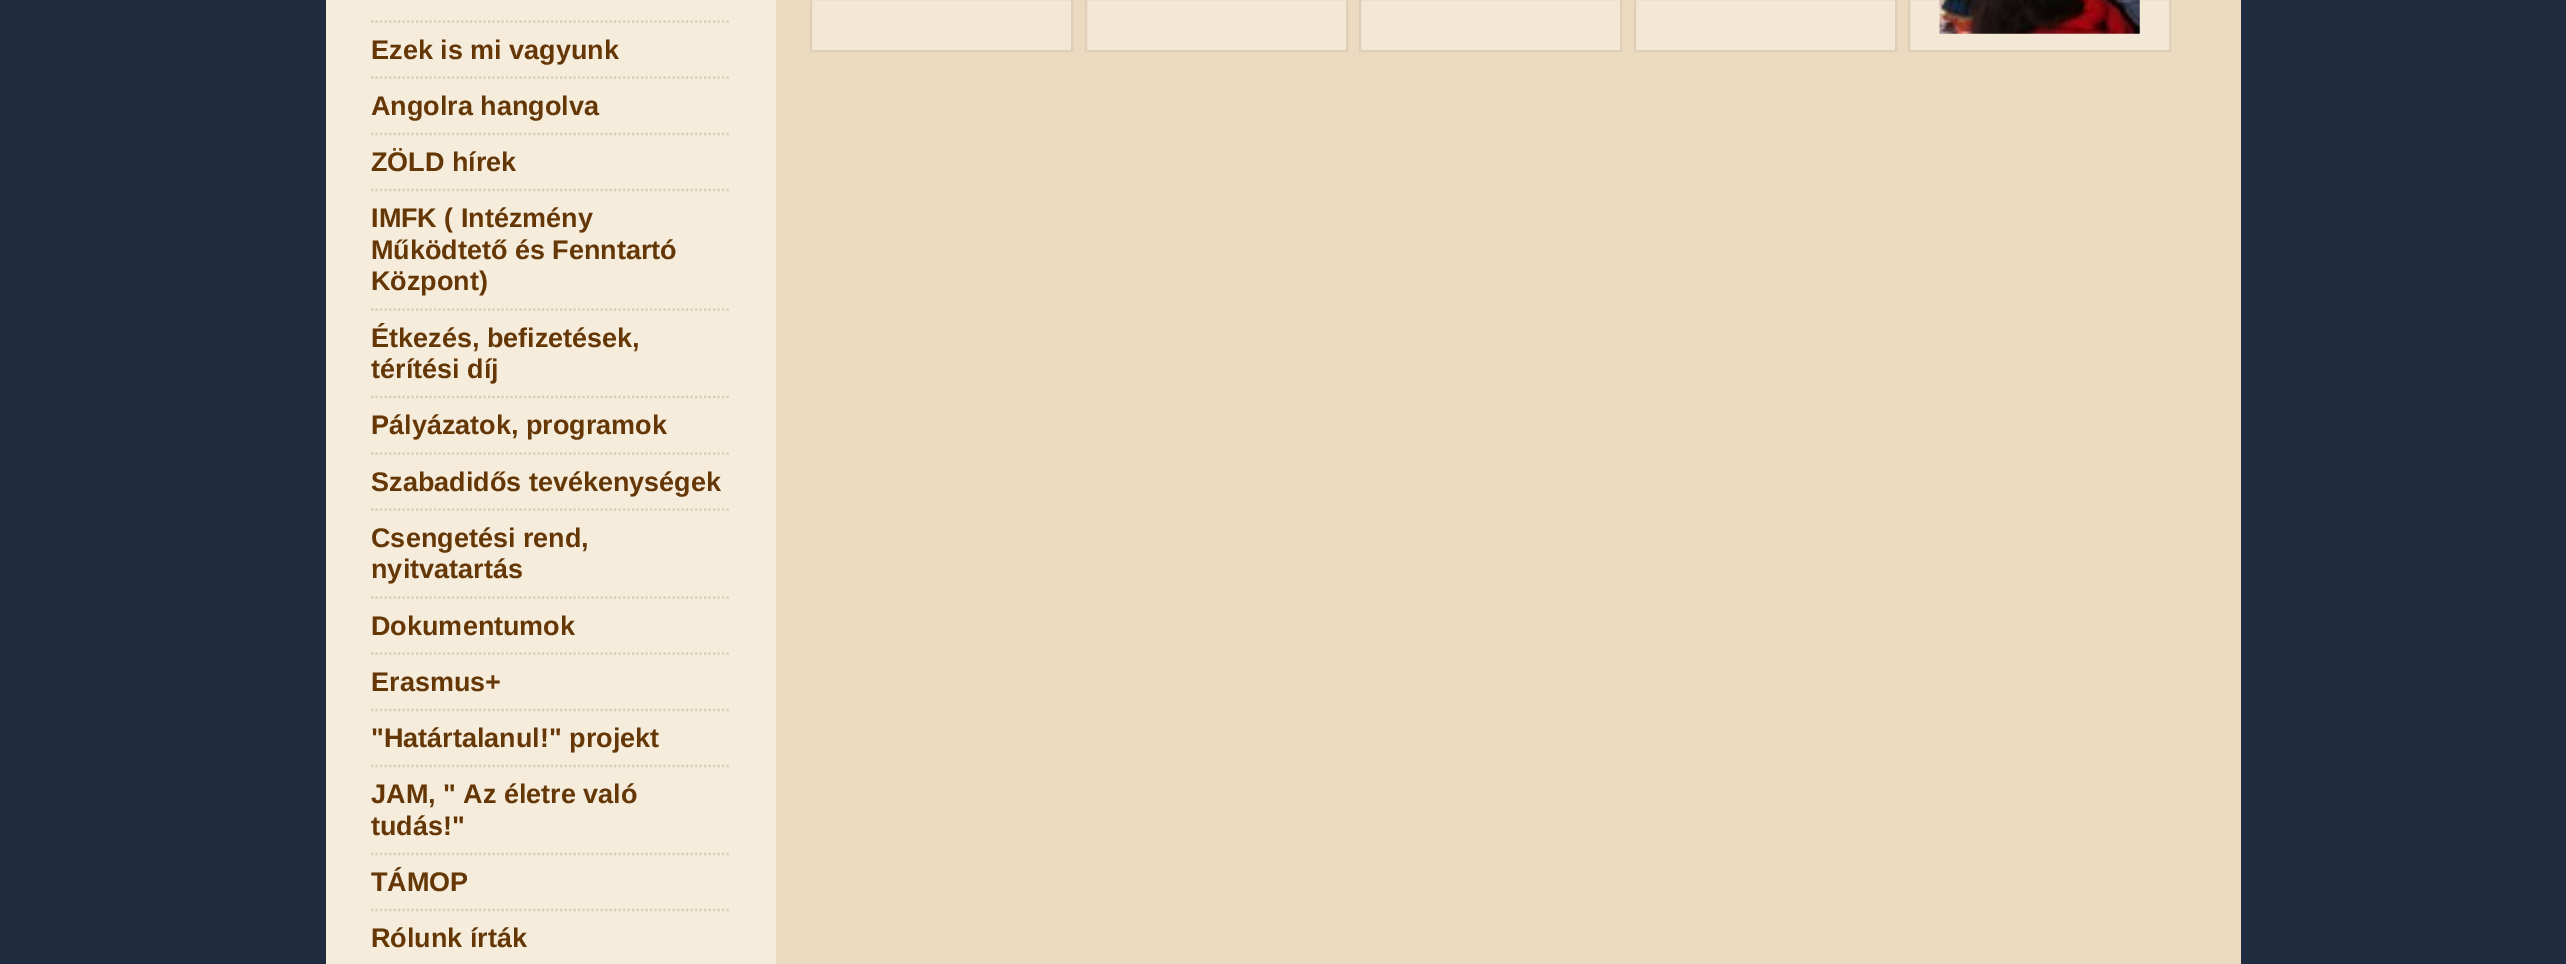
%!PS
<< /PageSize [2566 964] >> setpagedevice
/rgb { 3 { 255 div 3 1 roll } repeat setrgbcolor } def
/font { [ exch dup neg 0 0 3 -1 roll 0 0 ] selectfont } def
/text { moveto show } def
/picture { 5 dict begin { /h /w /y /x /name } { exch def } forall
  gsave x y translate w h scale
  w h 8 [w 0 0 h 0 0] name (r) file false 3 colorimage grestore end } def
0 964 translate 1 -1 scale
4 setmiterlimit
33 43 63 rgb
0 0 2566 964 rectfill
235 217 192 rgb
776 0 1465 964 rectfill
243 231 213 rgb
811 -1 moveto 261 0 rlineto 0 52 rlineto -261 0 rlineto closepath gsave fill grestore
223 207 185 rgb
2 setlinewidth
stroke
243 231 213 rgb
1086 -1 moveto 261 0 rlineto 0 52 rlineto -261 0 rlineto closepath gsave fill grestore
223 207 185 rgb
stroke
243 231 213 rgb
1360 -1 moveto 261 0 rlineto 0 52 rlineto -261 0 rlineto closepath gsave fill grestore
223 207 185 rgb
stroke
243 231 213 rgb
1635 -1 moveto 261 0 rlineto 0 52 rlineto -261 0 rlineto closepath gsave fill grestore
223 207 185 rgb
stroke
243 231 213 rgb
1909 -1 moveto 261 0 rlineto 0 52 rlineto -261 0 rlineto closepath gsave fill grestore
223 207 185 rgb
stroke
(img_01.rgb) 1939 0 201 34 picture
245 236 219 rgb
326 0 450 964 rectfill
219 206 182 rgb
2.2 setlinewidth
[2.25 2.25] 0 setdash
371 21.5 moveto 360 0 rlineto stroke
371 77.5 moveto 360 0 rlineto stroke
371 134 moveto 360 0 rlineto stroke
371 190 moveto 360 0 rlineto stroke
371 309.5 moveto 360 0 rlineto stroke
371 397 moveto 360 0 rlineto stroke
371 453.5 moveto 360 0 rlineto stroke
371 509.5 moveto 360 0 rlineto stroke
371 597.5 moveto 360 0 rlineto stroke
371 653.5 moveto 360 0 rlineto stroke
371 710 moveto 360 0 rlineto stroke
371 766 moveto 360 0 rlineto stroke
371 854 moveto 360 0 rlineto stroke
371 910 moveto 360 0 rlineto stroke
/LiberationSans-Bold 27 font
101 55 6 rgb
(Ezek is mi vagyunk) 371 59 text
(Angolra hangolva) 371 115 text
(ZÖLD hírek) 371 171 text
(IMFK \( Intézmény) 371 227 text
(Működtető és Fenntartó) 371 259 text
(Központ\)) 371 290 text
(Étkezés, befizetések,) 371 347 text
(térítési díj) 371 378 text
(Pályázatok, programok) 371 434 text
(Szabadidős tevékenységek) 371 491 text
(Csengetési rend,) 371 547 text
(nyitvatartás) 371 578 text
(Dokumentumok) 371 635 text
(Erasmus+) 371 691 text
("Határtalanul!" projekt) 371 747 text
(JAM, " Az életre való) 371 803 text
(tudás!") 371 835 text
(TÁMOP) 371 891 text
(Rólunk írták) 371 947 text
showpage
